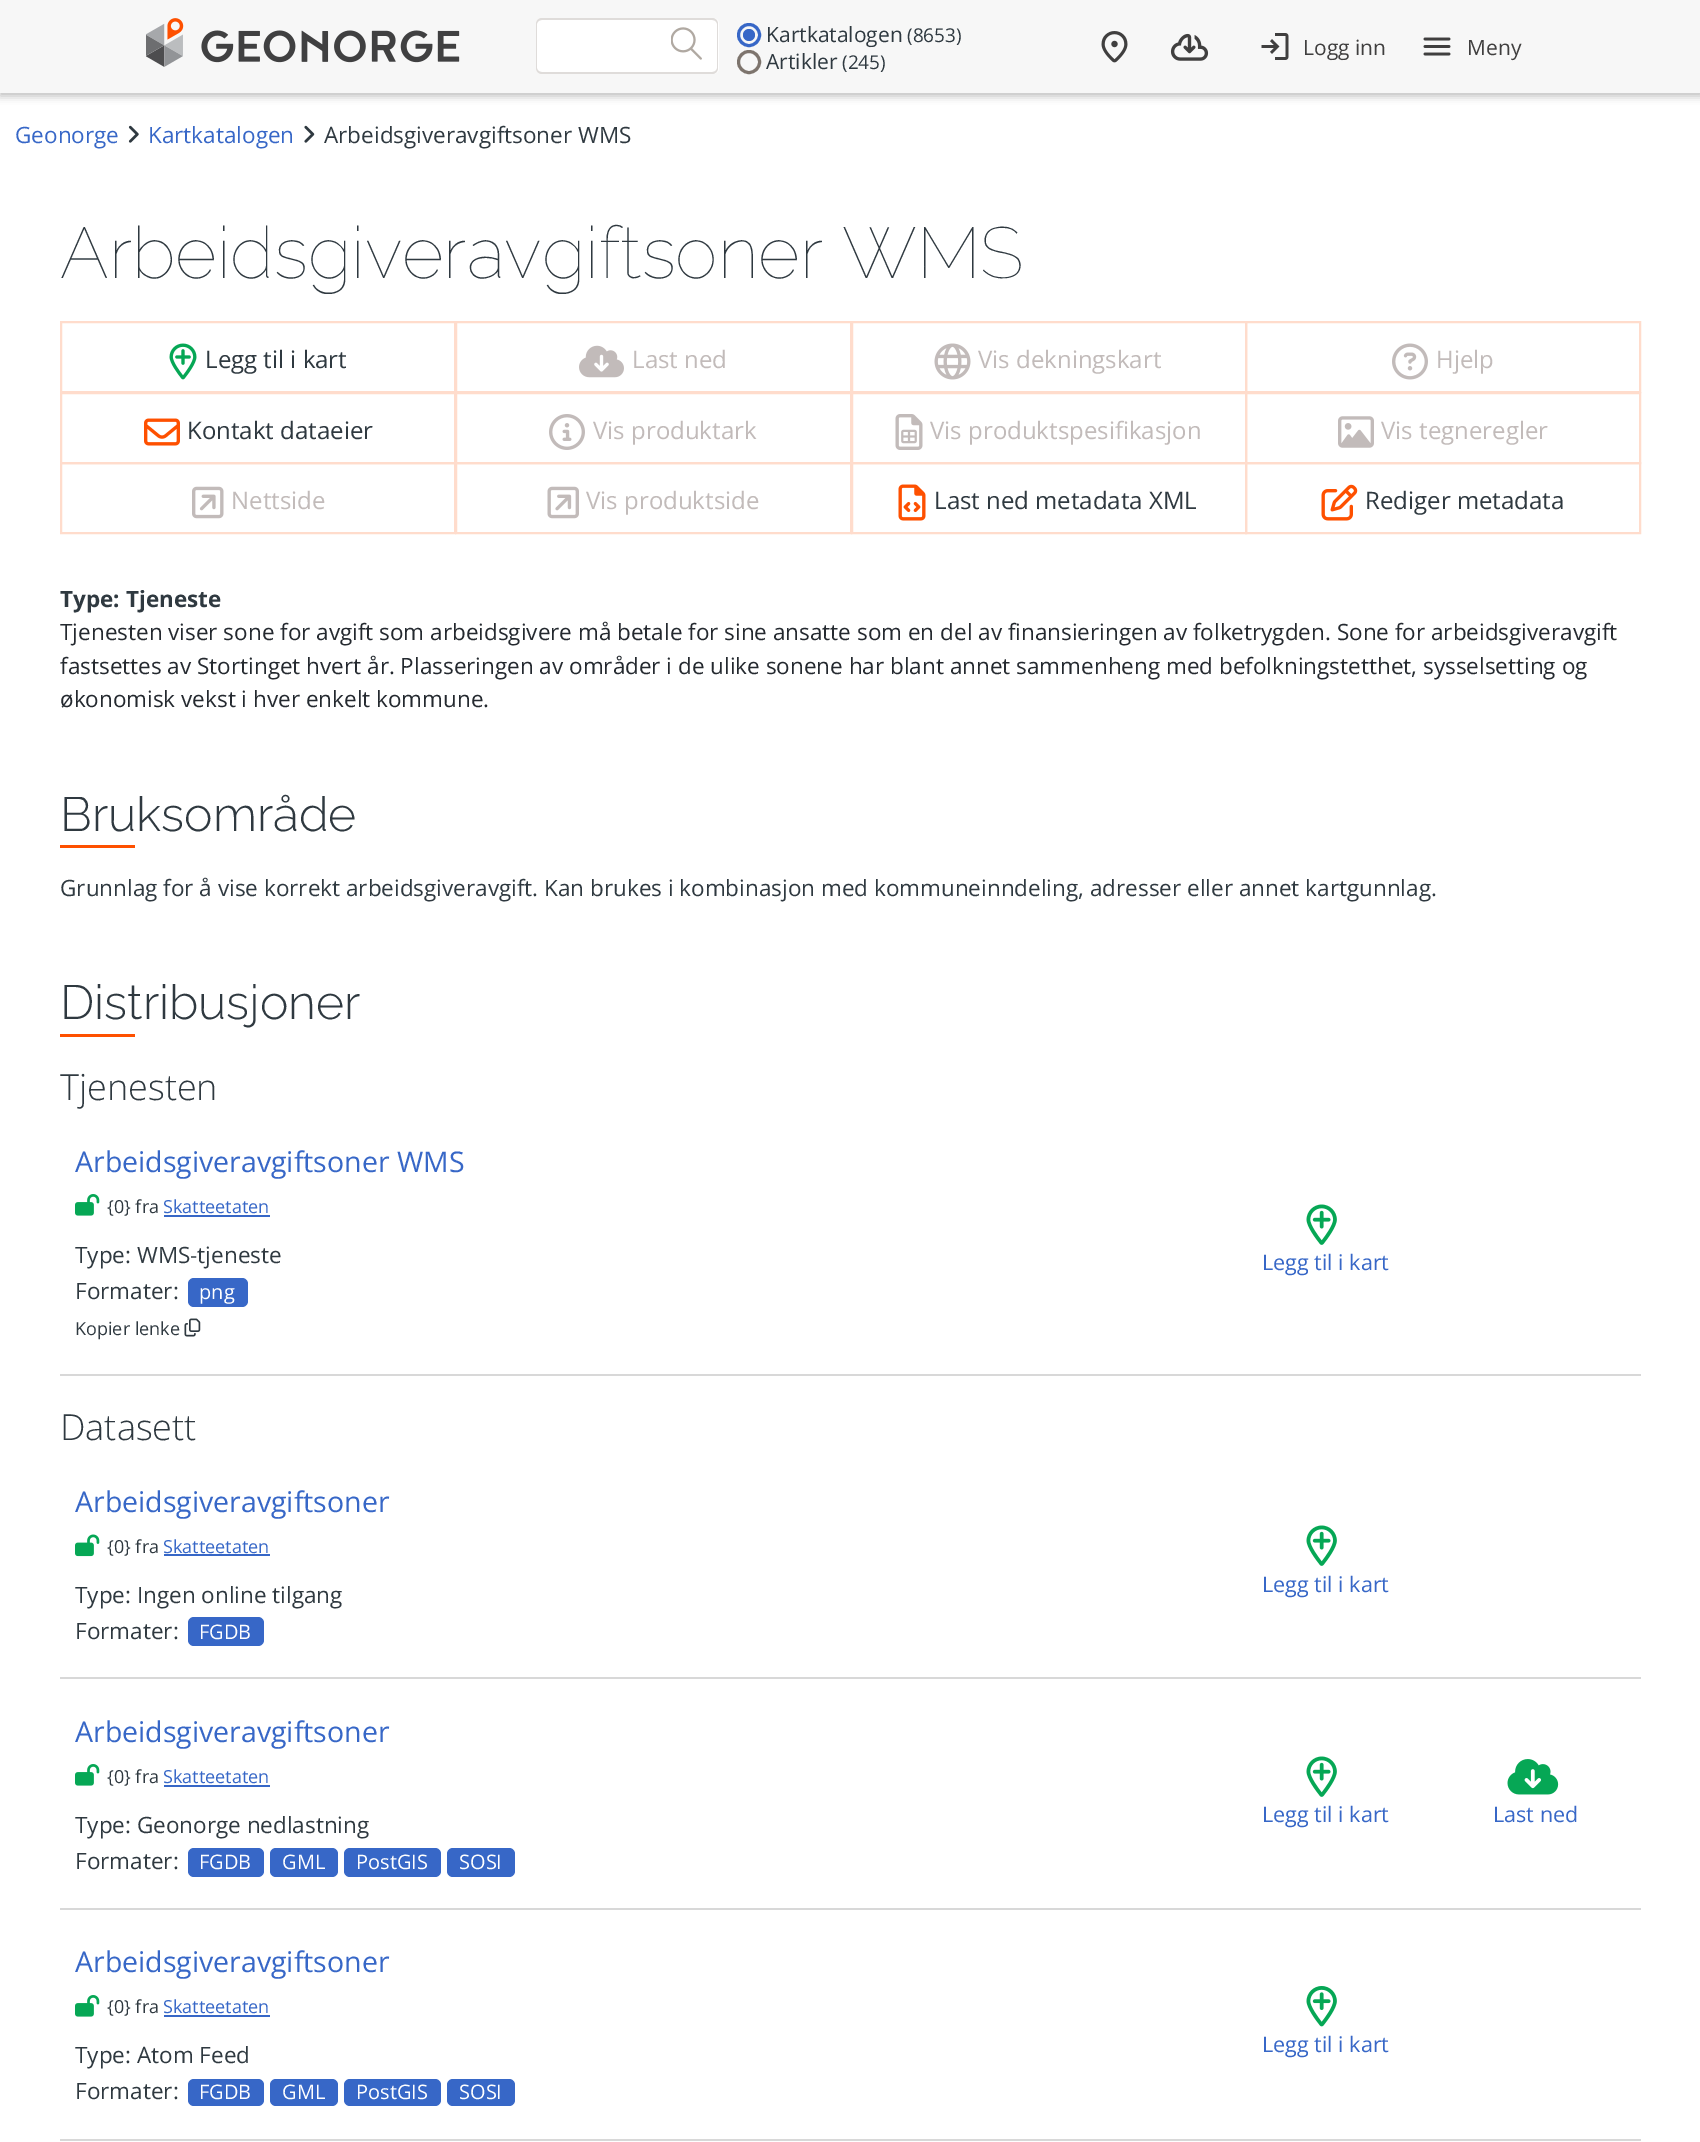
%!PS
<< /PageSize [1700 2142] /PageUsesTransparency true >> setpagedevice
/rgb { 3 { 255 div 3 1 roll } repeat setrgbcolor } def
/font { [ exch dup neg 0 0 3 -1 roll 0 0 ] selectfont } def
/text { moveto show } def
/alpha { dup .setfillconstantalpha .setstrokeconstantalpha } def
/circle { newpath 0 360 arc closepath } def
/roundrect { 5 dict begin { /r /h /w /y /x } { exch def } forall
  x r add y moveto x w add y 2 copy h add r arct x w add y h add x 1 index r arct
  x y h add x y r arct x y 2 copy exch w add exch r arct closepath end } def
/shadow { 12 dict begin { /a /b /q /h /w /y /x } { exch def } forall gsave /was 0 def
  9 -2 -9 { dup b mul 4 div /e exch def 1 sub .425 mul 2.718 exch exp 1 add a .99 .min exch div /now exch def
    1 1 now sub 1 was sub div sub alpha /was now def
    w h .min e 2 mul add 0 gt { x e sub y e sub w e 2 mul add h e 2 mul add
      q e add b .6 mul add w h .min 2 div e add .min 0 .max roundrect fill } if } for grestore end } def
/picture { 5 dict begin { /h /w /y /x /name } { exch def } forall
  gsave x y translate w h scale
  w h 8 [w 0 0 h 0 0] name (r) file false 3 colorimage grestore end } def
0 .pushpdf14devicefilter
0 2142 translate 1 -1 scale
4 setmiterlimit
255 255 255 rgb
0 0 1700 2142 rectfill
0 0 0 rgb
0 3 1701 93 0 4 0.26 shadow
247 247 247 rgb
0 0 1700 93 rectfill
(img_01.rgb) 146 18 314 49 picture
255 255 255 rgb
542 18 moveto 114 0 rlineto 0 56 rlineto -114 0 rlineto -3.5 0 -6 -2.5 -6 -6 rcurveto 0 -44 rlineto 0 -3.5 2.5 -6 6 -6 rcurveto closepath fill
223 220 218 rgb
542 18 moveto 114 0 rlineto 0 56 rlineto -114 0 rlineto -4 0 -6 -3 -6 -6 rcurveto 0 -44 rlineto 0 -3 2 -6 6 -6 rcurveto closepath 542 20 moveto 114 0 rlineto 0 52 rlineto -114 0 rlineto -3 0 -5 -2 -5 -4 rcurveto 0 -44 rlineto 0 -2 2 -4 5 -4 rcurveto closepath eofill
255 255 255 rgb
656 18 moveto 57 0 rlineto 3.5 0 6 2.5 6 6 rcurveto 0 44 rlineto 0 3.5 -2.5 6 -6 6 rcurveto -57 0 rlineto closepath fill
223 220 218 rgb
656 18 moveto 56 0 rlineto 4 0 6 3 6 6 rcurveto 0 44 rlineto 0 3 -2 6 -6 6 rcurveto -56 0 rlineto closepath 656 20 moveto 56 0 rlineto 3 0 5 2 5 4 rcurveto 0 44 rlineto 0 2 -2 4 -5 4 rcurveto -56 0 rlineto closepath eofill
(img_02.rgb) 671 27 31 33 picture
55 103 199 rgb
3 setlinewidth
749 35 10.5 circle stroke
749 35 6 circle fill
125 116 109 rgb
749 62 10.5 circle stroke
(img_03.rgb) 1101 31 27 32 picture
(img_04.rgb) 1170 33 39 28 picture
(img_05.rgb) 1261 33 28 27 picture
(img_06.rgb) 1423 37 28 19 picture
(img_07.rgb) 128 125 11 18 picture
(img_08.rgb) 304 125 11 18 picture
255 220 204 rgb
2 setlinewidth
61 322 394 70 rectstroke
(img_09.rgb) 169 343 28 37 picture
456 322 395 70 rectstroke
(img_10.rgb) 579 345 45 33 picture
852 322 394 70 rectstroke
(img_11.rgb) 934 343 37 37 picture
1246 322 394 70 rectstroke
(img_12.rgb) 1392 343 36 37 picture
61 393 394 70 rectstroke
(img_13.rgb) 144 418 36 28 picture
456 393 395 70 rectstroke
(img_14.rgb) 549 414 36 36 picture
852 393 394 70 rectstroke
(img_15.rgb) 895 414 28 36 picture
1246 393 394 70 rectstroke
(img_16.rgb) 1338 416 36 32 picture
61 463 394 70 rectstroke
(img_17.rgb) 192 486 32 33 picture
456 463 395 70 rectstroke
(img_18.rgb) 547 486 32 33 picture
852 463 394 70 rectstroke
(img_19.rgb) 898 484 28 37 picture
1246 463 394 70 rectstroke
(img_20.rgb) 1321 484 37 37 picture
254 80 0 rgb
60 845 75 3 rectfill
60 1034 75 3 rectfill
216 216 216 rgb
60 1374 1581 2 rectfill
(img_21.rgb) 75 1194 25 22 picture
55 103 199 rgb
164 1215 106 2 rectfill
188 1278 60 29 6 roundrect fill
(img_22.rgb) 184 1318 17 19 picture
(img_23.rgb) 1306 1204 31 41 picture
216 216 216 rgb
60 1677 1581 2 rectfill
(img_24.rgb) 75 1534 25 23 picture
55 103 199 rgb
164 1554 106 2 rectfill
188 1617 76 29 6 roundrect fill
(img_23.rgb) 1306 1525 31 41 picture
216 216 216 rgb
60 1908 1581 2 rectfill
(img_21.rgb) 75 1764 25 22 picture
55 103 199 rgb
164 1785 106 2 rectfill
188 1848 76 29 6 roundrect fill
270 1848 68 29 6 roundrect fill
344 1848 97 29 6 roundrect fill
447 1848 68 29 6 roundrect fill
(img_23.rgb) 1306 1756 31 41 picture
(img_25.rgb) 1507 1759 52 36 picture
216 216 216 rgb
60 2139 1581 2 rectfill
(img_21.rgb) 75 1995 25 22 picture
55 103 199 rgb
164 2015 106 2 rectfill
188 2079 76 27 6 roundrect fill
270 2079 68 27 6 roundrect fill
344 2079 97 27 6 roundrect fill
447 2079 68 27 6 roundrect fill
(img_26.rgb) 1306 1986 31 41 picture
/OpenSans-Regular 21 font
47 57 64 rgb
(Kartkatalogen) 766 42 text
/OpenSans-Regular 19 font
(\(8653\)) 907 42 text
/OpenSans-Regular 21 font
(Artikler) 766 69 text
/OpenSans-Regular 19 font
(\(245\)) 842 69 text
/OpenSans-Regular 21 font
64 63 63 rgb
(Logg inn) 1303 55 text
(Meny) 1467 55 text
/OpenSans-Regular 22.5 font
55 103 199 rgb
(Geonorge) 15 143 text
(Kartkatalogen) 148 143 text
47 57 64 rgb
(Arbeidsgiveravgiftsoner WMS) 324 143 text
/Raleway-Thin 72 font
(Arbeidsgiveravgiftsoner WMS) 60 278 text
/OpenSans-Regular 24 font
(Legg til i kart) 205 368 text
194 187 186 rgb
(Last ned) 632 368 text
(Vis dekningskart) 978 368 text
(Hjelp) 1436 368 text
47 57 64 rgb
(Kontakt dataeier) 187 439 text
194 187 186 rgb
(Vis produktark) 593 439 text
(Vis produktspesifikasjon) 930 439 text
(Vis tegneregler) 1381 439 text
(Nettside) 231 509 text
(Vis produktside) 586 509 text
47 57 64 rgb
(Last ned metadata XML) 934 509 text
(Rediger metadata) 1365 509 text
/OpenSans-Bold 22.5 font
(Type: Tjeneste) 60 607 text
/OpenSans-Regular 22.5 font
36 41 47 rgb
(Tjenesten viser sone for avgift som arbeidsgivere må betale for sine ansatte som en del av finansieringen av folketrygden. Sone for arbeidsgiveravgift) 60 640 text
(fastsettes av Stortinget hvert år. Plasseringen av områder i de ulike sonene har blant annet sammenheng med befolkningstetthet, sysselsetting og) 60 674 text
(økonomisk vekst i hver enkelt kommune.) 60 707 text
/Raleway-Light 48 font
47 57 64 rgb
(Bruksområde) 60 831 text
/OpenSans-Regular 22.5 font
(Grunnlag for å vise korrekt arbeidsgiveravgift. Kan brukes i kombinasjon med kommuneinndeling, adresser eller annet kartgunnlag.) 60 896 text
/Raleway-Light 48 font
(Distribusjoner) 60 1019 text
/OpenSans-Light 36 font
(Tjenesten) 60 1100 text
/OpenSans-Regular 28.5 font
55 103 199 rgb
(Arbeidsgiveravgiftsoner WMS) 75 1172 text
/OpenSans-Regular 18 font
47 57 64 rgb
({0} fra) 107 1213 text
55 103 199 rgb
(Skatteetaten) 163 1213 text
/OpenSans-Regular 22.5 font
47 57 64 rgb
(Type: WMS-tjeneste) 75 1263 text
(Formater:) 75 1299 text
/OpenSans-Regular 20 font
255 255 255 rgb
(png) 199 1299 text
/OpenSans-Regular 18 font
47 57 64 rgb
(Kopier lenke) 75 1335 text
/OpenSans-Regular 21.5 font
55 103 199 rgb
(Legg til i kart) 1262 1270 text
/OpenSans-Light 36 font
47 57 64 rgb
(Datasett) 60 1440 text
/OpenSans-Regular 28.5 font
55 103 199 rgb
(Arbeidsgiveravgiftsoner) 75 1512 text
/OpenSans-Regular 18 font
47 57 64 rgb
({0} fra) 107 1553 text
55 103 199 rgb
(Skatteetaten) 163 1553 text
/OpenSans-Regular 22.5 font
47 57 64 rgb
(Type: Ingen online tilgang) 75 1603 text
(Formater:) 75 1639 text
/OpenSans-Regular 20 font
255 255 255 rgb
(FGDB) 199 1639 text
/OpenSans-Regular 21.5 font
55 103 199 rgb
(Legg til i kart) 1262 1592 text
/OpenSans-Regular 28.5 font
(Arbeidsgiveravgiftsoner) 75 1742 text
/OpenSans-Regular 18 font
47 57 64 rgb
({0} fra) 107 1783 text
55 103 199 rgb
(Skatteetaten) 163 1783 text
/OpenSans-Regular 22.5 font
47 57 64 rgb
(Type: Geonorge nedlastning) 75 1833 text
(Formater:) 75 1869 text
/OpenSans-Regular 20 font
255 255 255 rgb
(FGDB) 199 1869 text
(GML) 282 1869 text
(PostGIS) 356 1869 text
(SOSI) 459 1869 text
/OpenSans-Regular 21.5 font
55 103 199 rgb
(Legg til i kart) 1262 1822 text
(Last ned) 1493 1822 text
/OpenSans-Regular 28.5 font
(Arbeidsgiveravgiftsoner) 75 1972 text
/OpenSans-Regular 18 font
47 57 64 rgb
({0} fra) 107 2013 text
55 103 199 rgb
(Skatteetaten) 163 2013 text
/OpenSans-Regular 22.5 font
47 57 64 rgb
(Type: Atom Feed) 75 2063 text
(Formater:) 75 2099 text
/OpenSans-Regular 20 font
255 255 255 rgb
(FGDB) 199 2099 text
(GML) 282 2099 text
(PostGIS) 356 2099 text
(SOSI) 459 2099 text
/OpenSans-Regular 21.5 font
55 103 199 rgb
(Legg til i kart) 1262 2052 text
.poppdf14devicefilter showpage
